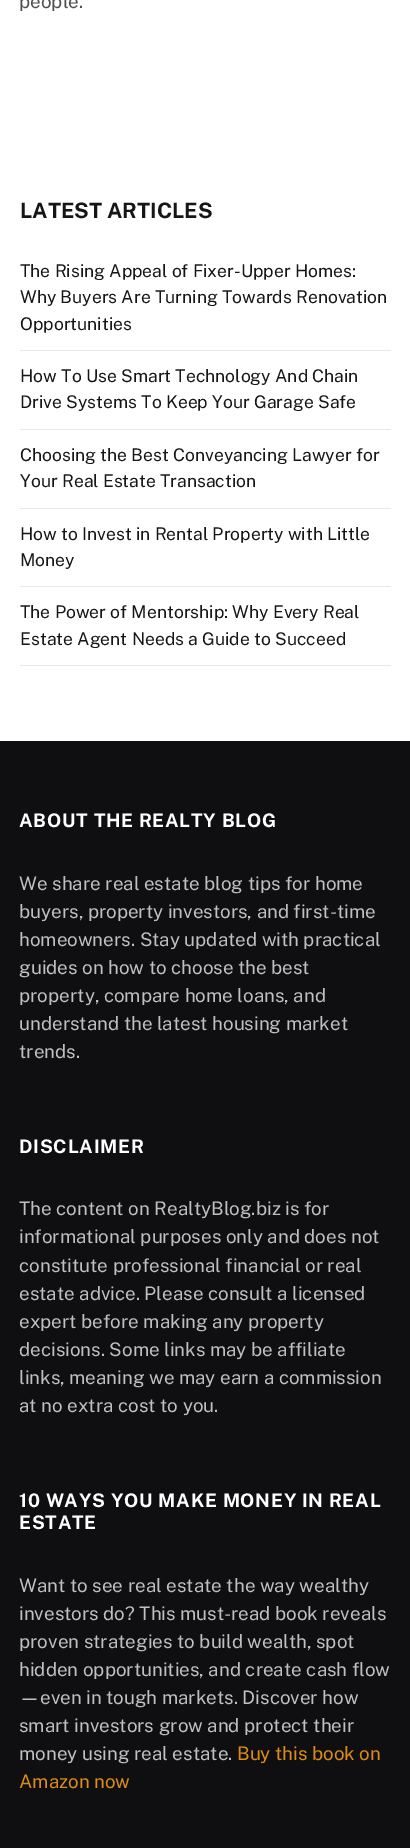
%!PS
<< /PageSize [410 1848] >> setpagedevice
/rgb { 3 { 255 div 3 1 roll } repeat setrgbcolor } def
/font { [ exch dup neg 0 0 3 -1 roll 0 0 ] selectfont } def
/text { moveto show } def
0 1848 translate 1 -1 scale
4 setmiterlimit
255 255 255 rgb
0 0 410 1848 rectfill
232 232 232 rgb
20 350 371 1 rectfill
20 429 371 1 rectfill
20 508 371 1 rectfill
20 586 371 1 rectfill
20 665 371 1 rectfill
15 15 17 rgb
0 741 410 1107 rectfill
/PublicSans-Regular 18.75 font
80 80 80 rgb
(people.) 19 8 text
/PublicSans-Bold 21.25 font
22 22 22 rgb
(LATEST ARTICLES) 20 218 text
/PublicSans-Regular 17.5 font
(The Rising Appeal of Fixer-Upper Homes:) 20 277 text
(Why Buyers Are Turning Towards Renovation) 20 303 text
(Opportunities) 20 330 text
(How To Use Smart Technology And Chain) 20 382 text
(Drive Systems To Keep Your Garage Safe) 20 408 text
(Choosing the Best Conveyancing Lawyer for) 20 461 text
(Your Real Estate Transaction) 20 487 text
(How to Invest in Rental Property with Little) 20 540 text
(Money) 20 566 text
(The Power of Mentorship: Why Every Real) 20 618 text
(Estate Agent Needs a Guide to Succeed) 20 645 text
/PublicSans-Bold 18.75 font
255 255 255 rgb
19 827 moveto 0.75 0 (ABOUT THE REALTY BLOG) ashow
/PublicSans-Regular 18.75 font
192 192 192 rgb
(We share real estate blog tips for home) 19 890 text
(buyers, property investors, and first-time) 19 918 text
(homeowners. Stay updated with practical) 19 946 text
(guides on how to choose the best) 19 974 text
(property, compare home loans, and) 19 1002 text
(understand the latest housing market) 19 1030 text
(trends.) 19 1058 text
/PublicSans-Bold 18.75 font
255 255 255 rgb
19 1153 moveto 0.75 0 (DISCLAIMER) ashow
/PublicSans-Regular 18.75 font
192 192 192 rgb
(The content on RealtyBlog.biz is for) 19 1215 text
(informational purposes only and does not) 19 1243 text
(constitute professional financial or real) 19 1272 text
(estate advice. Please consult a licensed) 19 1300 text
(expert before making any property) 19 1328 text
(decisions. Some links may be affiliate) 19 1356 text
(links, meaning we may earn a commission) 19 1384 text
(at no extra cost to you.) 19 1412 text
/PublicSans-Bold 18.75 font
255 255 255 rgb
19 1507 moveto 0.75 0 (10 WAYS YOU MAKE MONEY IN REAL) ashow
19 1529 moveto 0.75 0 (ESTATE) ashow
/PublicSans-Regular 18.75 font
192 192 192 rgb
(Want to see real estate the way wealthy) 19 1592 text
(investors do? This must-read book reveals) 19 1620 text
(proven strategies to build wealth, spot) 19 1648 text
(hidden opportunities, and create cash flow) 19 1676 text
(—even in tough markets. Discover how) 19 1704 text
(smart investors grow and protect their) 19 1732 text
(money using real estate.) 19 1760 text
221 141 22 rgb
(Buy this book on) 237 1760 text
(Amazon now) 19 1788 text
showpage
